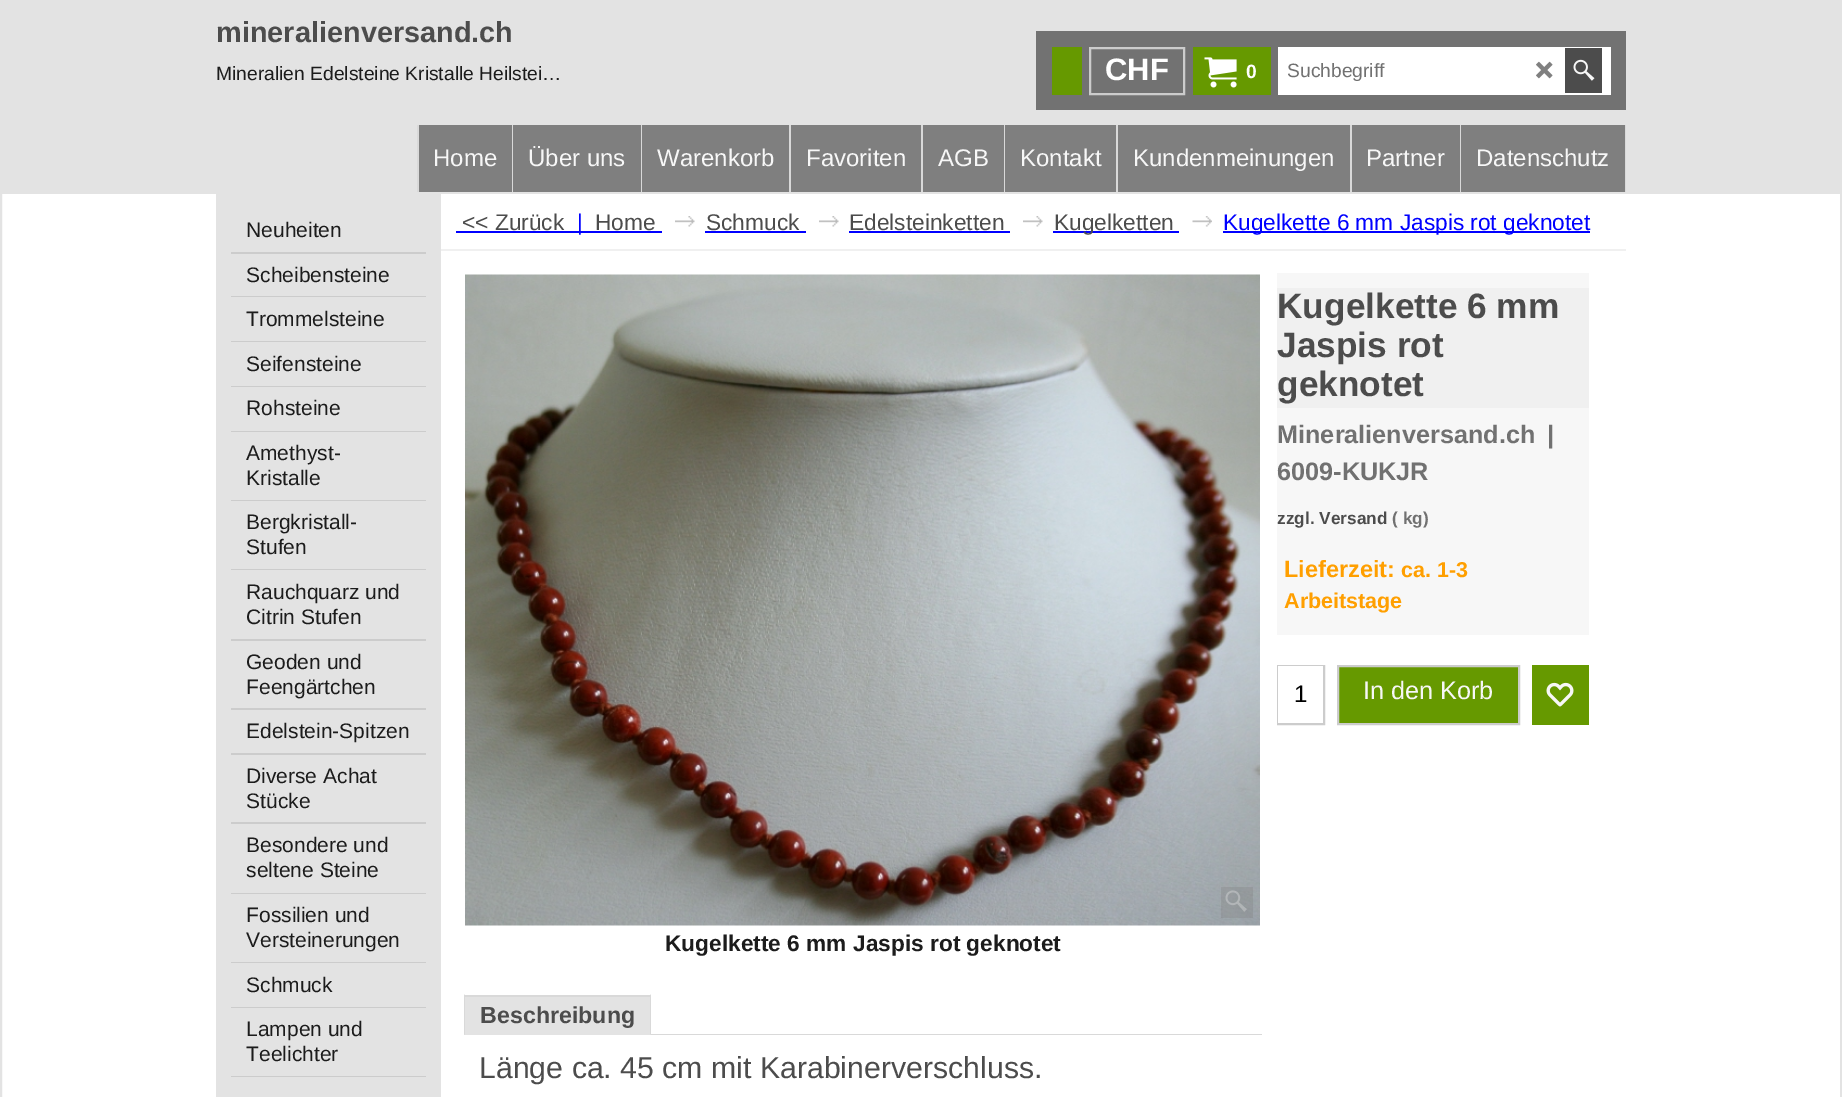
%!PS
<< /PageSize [1842 1097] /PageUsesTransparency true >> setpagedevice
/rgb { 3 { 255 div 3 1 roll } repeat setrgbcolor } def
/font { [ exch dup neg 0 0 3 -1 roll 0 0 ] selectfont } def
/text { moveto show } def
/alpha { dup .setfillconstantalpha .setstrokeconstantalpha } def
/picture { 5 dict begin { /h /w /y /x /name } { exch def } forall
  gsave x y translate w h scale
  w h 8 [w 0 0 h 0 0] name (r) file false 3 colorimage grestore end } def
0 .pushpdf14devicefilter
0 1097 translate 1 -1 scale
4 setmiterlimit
255 255 255 rgb
0 0 1842 1097 rectfill
227 227 227 rgb
2 setlinewidth
1 1 1840 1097 rectstroke
2 2 1838 192 rectfill
114 114 114 rgb
1036 31 590 79 rectfill
102 153 0 rgb
1052 47 30 48 rectfill
204 204 204 rgb
1090 48 94 46 rectstroke
102 153 0 rgb
1193 47 78 48 rectfill
(img_01.rgb) 1204 57 33 31 picture
255 255 255 rgb
1278 47 333 48 rectfill
(img_02.rgb) 1536 61 17 18 picture
76 76 76 rgb
1565 48 37 45 rectfill
(img_03.rgb) 1573 59 22 22 picture
127 127 127 rgb
419 125 1041 67 rectfill
217 217 217 rgb
417 125 2 67 rectfill
512 125 1 67 rectfill
641 125 1 67 rectfill
789 125 2 67 rectfill
921 125 2 67 rectfill
1004 125 1 67 rectfill
1116 125 2 67 rectfill
1350 125 2 67 rectfill
1460 125 1 67 rectfill
127 127 127 rgb
1461 125 164 67 rectfill
217 217 217 rgb
1625 125 1 67 rectfill
227 227 227 rgb
216 194 225 903 rectfill
204 204 204 rgb
231 252 195 2 rectfill
231 296 195 1 rectfill
231 341 195 1 rectfill
231 386 195 1 rectfill
231 431 195 1 rectfill
231 500 195 1 rectfill
231 569 195 1 rectfill
231 639 195 2 rectfill
231 708 195 2 rectfill
231 753 195 2 rectfill
231 822 195 2 rectfill
231 893 195 1 rectfill
231 962 195 1 rectfill
231 1007 195 1 rectfill
231 1076 195 1 rectfill
240 240 240 rgb
441 249 1185 2 rectfill
0 0 255 rgb
456 231 206 2 rectfill
(img_04.rgb) 675 216 20 11 picture
705 231 101 2 rectfill
(img_04.rgb) 819 216 20 11 picture
849 231 161 2 rectfill
(img_05.rgb) 1023 216 20 11 picture
1053 231 126 2 rectfill
(img_06.rgb) 1192 216 20 11 picture
1223 231 367 2 rectfill
247 247 247 rgb
1277 273 312 362 rectfill
240 240 240 rgb
1277 288 312 120 rectfill
204 204 204 rgb
1278 666 46 58 rectstroke
255 255 255 rgb
1278 666 45 57 rectfill
102 153 0 rgb
1338 666 moveto 181 0 rlineto 0 58 rlineto -181 0 rlineto closepath gsave fill grestore
204 204 204 rgb
stroke
102 153 0 rgb
1532 665 57 60 rectfill
(img_07.rgb) 1546 682 28 25 picture
(img_08.rgb) 465 274 795 652 picture
0.3 alpha
127 127 127 rgb
1221 887 32 31 rectfill
1 alpha
(img_09.rgb) 1225 890 22 22 picture
227 227 227 rgb
464 997 187 38 rectfill
217 217 217 rgb
464 995 187 2 rectfill
651 994 moveto 0 41 rlineto -1 -1 rlineto 0 -38 rlineto closepath fill
464 1035 moveto 0 -41 rlineto 1 2 rlineto 0 38 rlineto closepath fill
651 1034 611 1 rectfill
/LiberationSans-Bold 28.9 font
76 76 76 rgb
(mineralienversand.ch) 216 42 text
/LiberationSans-Regular 19.25 font
28 28 28 rgb
(Mineralien Edelsteine Kristalle Heilstei…) 216 80 text
/LiberationSans-Bold 31 font
255 255 255 rgb
(CHF) 1105 80 text
/LiberationSans-Bold 19.25 font
(0) 1246 78 text
/LiberationSans-Regular 19.25 font
113 113 113 rgb
(Suchbegriff) 1287 77 text
/LiberationSans-Regular 24 font
247 247 247 rgb
(Home) 433 166 text
(Über uns) 528 166 text
(Warenkorb) 657 166 text
(Favoriten) 806 166 text
(AGB) 938 166 text
(Kontakt) 1020 166 text
(Kundenmeinungen) 1133 166 text
(Partner) 1366 166 text
(Datenschutz) 1476 166 text
/LiberationSans-Regular 21 font
28 28 28 rgb
(Neuheiten) 246 237 text
(Scheibensteine) 246 282 text
(Trommelsteine) 246 326 text
(Seifensteine) 246 371 text
(Rohsteine) 246 415 text
(Amethyst-) 246 460 text
(Kristalle) 246 485 text
(Bergkristall-) 246 529 text
(Stufen) 246 554 text
(Rauchquarz und) 246 599 text
(Citrin Stufen) 246 624 text
(Geoden und) 246 669 text
(Feengärtchen) 246 694 text
(Edelstein-Spitzen) 246 738 text
(Diverse Achat) 246 783 text
(Stücke) 246 808 text
(Besondere und) 246 852 text
(seltene Steine) 246 877 text
(Fossilien und) 246 922 text
(Versteinerungen) 246 947 text
(Schmuck) 246 992 text
(Lampen und) 246 1036 text
(Teelichter) 246 1061 text
/LiberationSans-Regular 22.7 font
76 76 76 rgb
(<< Zurück) 462 230 text
0 0 255 rgb
(|) 577 230 text
76 76 76 rgb
(Home) 595 230 text
(Schmuck) 706 230 text
(Edelsteinketten) 849 230 text
(Kugelketten) 1054 230 text
0 0 255 rgb
(Kugelkette 6 mm Jaspis rot geknotet) 1223 230 text
/LiberationSans-Bold 35.25 font
76 76 76 rgb
(Kugelkette 6 mm) 1277 318 text
(Jaspis rot) 1277 357 text
(geknotet) 1277 396 text
/LiberationSans-Bold 25.25 font
113 113 113 rgb
(Mineralienversand.ch) 1277 443 text
(|) 1547 443 text
(6009-KUKJR) 1277 480 text
/LiberationSans-Bold 17.25 font
76 76 76 rgb
(zzgl. Versand) 1277 524 text
113 113 113 rgb
(\( kg\)) 1392 524 text
/LiberationSans-Bold 23.5 font
255 159 0 rgb
(Lieferzeit:) 1284 577 text
/LiberationSans-Bold 21.5 font
(ca. 1-3) 1401 577 text
(Arbeitstage) 1284 608 text
/LiberationSans-Regular 24 font
0 0 0 rgb
(1) 1294 702 text
/LiberationSans-Regular 25.25 font
247 247 247 rgb
(In den Korb) 1363 699 text
/LiberationSans-Bold 22.7 font
28 28 28 rgb
(Kugelkette 6 mm Jaspis rot geknotet) 665 951 text
/LiberationSans-Bold 23.25 font
76 76 76 rgb
(Beschreibung) 480 1023 text
/LiberationSans-Regular 30.25 font
(Länge ca. 45 cm mit Karabinerverschluss.) 479 1078 text
.poppdf14devicefilter showpage
